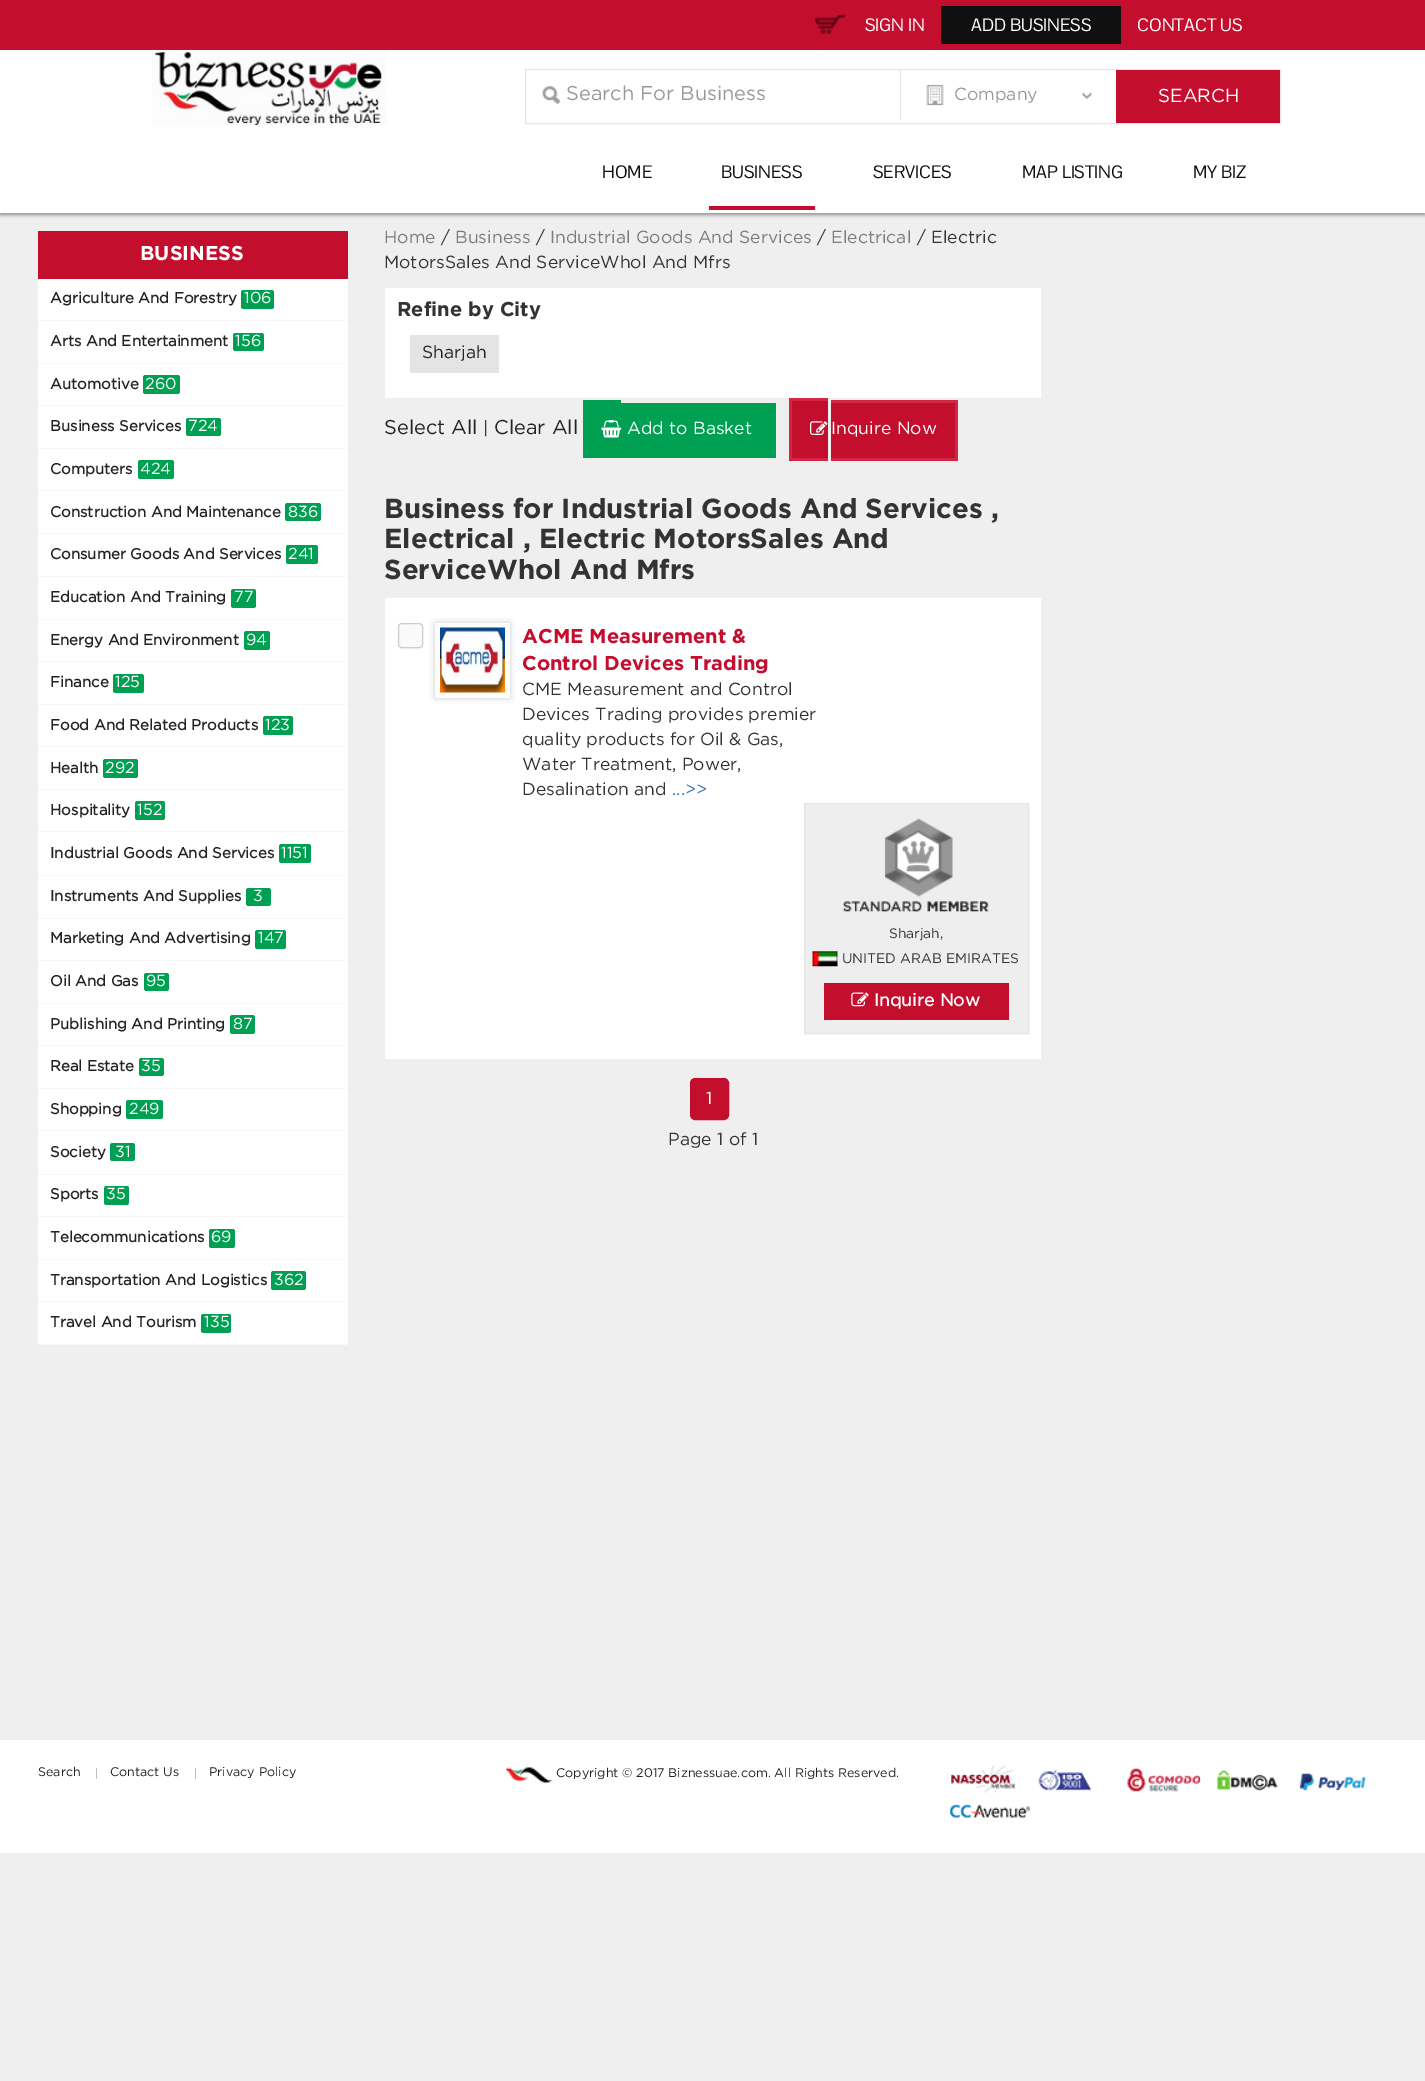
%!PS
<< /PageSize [1425 2081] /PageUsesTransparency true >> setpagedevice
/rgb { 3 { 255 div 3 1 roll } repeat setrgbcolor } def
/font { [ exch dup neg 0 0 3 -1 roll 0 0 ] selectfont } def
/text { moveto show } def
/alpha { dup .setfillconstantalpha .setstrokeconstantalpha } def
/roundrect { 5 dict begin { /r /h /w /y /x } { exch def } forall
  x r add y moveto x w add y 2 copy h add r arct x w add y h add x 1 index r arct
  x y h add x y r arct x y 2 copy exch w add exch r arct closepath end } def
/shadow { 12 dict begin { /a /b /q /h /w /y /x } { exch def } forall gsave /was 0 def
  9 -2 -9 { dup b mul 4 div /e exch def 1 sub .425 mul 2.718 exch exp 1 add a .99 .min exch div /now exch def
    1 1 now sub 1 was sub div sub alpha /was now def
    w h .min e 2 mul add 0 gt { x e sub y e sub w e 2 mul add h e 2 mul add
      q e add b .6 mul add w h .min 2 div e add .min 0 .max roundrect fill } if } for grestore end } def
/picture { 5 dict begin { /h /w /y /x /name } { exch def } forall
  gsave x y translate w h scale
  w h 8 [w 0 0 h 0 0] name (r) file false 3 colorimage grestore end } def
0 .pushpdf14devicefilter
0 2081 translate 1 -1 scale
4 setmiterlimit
239 239 239 rgb
0 0 1425 2081 rectfill
195 14 46 rgb
0 0 1425 50 rectfill
(img_01.rgb) 814 14 32 20 picture
16 16 16 rgb
941 6 180 38 rectfill
140 140 140 rgb
0 53 1425 162 0 2 1 shadow
255 255 255 rgb
0 50 1425 163 rectfill
(img_02.rgb) 152 50 235 75 picture
228 228 228 rgb
525.5 69.5 755 54 rectstroke
(img_03.rgb) 542 86 19 18 picture
900 70 1 50 rectfill
(img_04.rgb) 1082 92 10 7 picture
(img_05.rgb) 926 84 18 22 picture
195 14 46 rgb
1116 70 164 53 rectfill
709 206 106 4 rectfill
255 255 255 rgb
38 279 310 1065 rectfill
195 14 46 rgb
38 231 310 48 rectfill
248 248 248 rgb
38 320 310 1 rectfill
0 160 82 rgb
241 290 33 19 2.5 roundrect fill
248 248 248 rgb
38 363 310 1 rectfill
0 160 82 rgb
233 333 31 18 2.5 roundrect fill
248 248 248 rgb
38 405 310 1 rectfill
0 160 82 rgb
143 375 37 19 2.5 roundrect fill
248 248 248 rgb
38 448 310 1 rectfill
0 160 82 rgb
186 418 35 18 2.5 roundrect fill
248 248 248 rgb
38 490 310 1 rectfill
0 160 82 rgb
138 460 36 19 2.5 roundrect fill
248 248 248 rgb
38 533 310 1 rectfill
0 160 82 rgb
285 503 36 18 2.5 roundrect fill
248 248 248 rgb
38 576 310 1 rectfill
0 160 82 rgb
286 545 32 19 2.5 roundrect fill
248 248 248 rgb
38 619 310 1 rectfill
0 160 82 rgb
231 589 25 19 2.5 roundrect fill
248 248 248 rgb
38 661 310 1 rectfill
0 160 82 rgb
244 631 26 19 2.5 roundrect fill
248 248 248 rgb
38 704 310 1 rectfill
0 160 82 rgb
113 674 31 19 2.5 roundrect fill
248 248 248 rgb
38 746 310 1 rectfill
0 160 82 rgb
263 716 30 19 2.5 roundrect fill
248 248 248 rgb
38 789 310 1 rectfill
0 160 82 rgb
103 759 35 19 2.5 roundrect fill
248 248 248 rgb
38 831 310 1 rectfill
0 160 82 rgb
135 801 30 19 2.5 roundrect fill
248 248 248 rgb
38 875 310 1 rectfill
0 160 82 rgb
279 844 32 19 2.5 roundrect fill
248 248 248 rgb
38 918 310 1 rectfill
0 160 82 rgb
246 888 25 18 2.5 roundrect fill
248 248 248 rgb
38 960 310 1 rectfill
0 160 82 rgb
255 930 31 19 2.5 roundrect fill
248 248 248 rgb
38 1003 310 1 rectfill
0 160 82 rgb
144 973 25 18 2.5 roundrect fill
248 248 248 rgb
38 1045 310 1 rectfill
0 160 82 rgb
230 1015 25 19 2.5 roundrect fill
248 248 248 rgb
38 1088 310 1 rectfill
0 160 82 rgb
139 1058 25 18 2.5 roundrect fill
248 248 248 rgb
38 1130 310 1 rectfill
0 160 82 rgb
126 1100 37 19 2.5 roundrect fill
248 248 248 rgb
38 1174 310 1 rectfill
0 160 82 rgb
110 1143 25 18 2.5 roundrect fill
248 248 248 rgb
38 1216 310 1 rectfill
0 160 82 rgb
104 1186 25 19 2.5 roundrect fill
248 248 248 rgb
38 1259 310 1 rectfill
0 160 82 rgb
209 1229 26 19 2.5 roundrect fill
248 248 248 rgb
38 1301 310 1 rectfill
0 160 82 rgb
271 1271 35 19 2.5 roundrect fill
248 248 248 rgb
38 1344 310 1 rectfill
0 160 82 rgb
201 1314 30 19 2.5 roundrect fill
255 255 255 rgb
385 288 656 110 rectfill
228 228 228 rgb
410 335 89 38 rectfill
0 160 82 rgb
583 400 38 58 rectfill
621 403 155 55 rectfill
(img_06.rgb) 601 420 21 18 picture
195 14 46 rgb
792 401 36 57 rectfill
209 39 69 rgb
789 398 39 3 rectfill
789 458 39 3 rectfill
789 398 3 62 rectfill
195 14 46 rgb
831 403 124 55 rectfill
209 39 69 rgb
831 400 127 3 rectfill
955 400 3 60 rectfill
831 458 127 3 rectfill
(img_07.rgb) 810 421 18 14 picture
255 255 255 rgb
385 598 656 461 rectfill
0 0 0 rgb
398 624 25 25 4 1 0.05 shadow
250 250 250 rgb
398.5 623.5 24 24 3.5 roundrect gsave fill grestore
202 206 206 rgb
stroke
201 201 201 rgb
435 623 75 75 0 3 1 shadow
255 255 255 rgb
435 623 75 75 rectfill
(img_08.rgb) 440 627 65 66 picture
238 238 238 rgb
804.5 803.5 moveto 224 0 rlineto 0 230 rlineto -224 0 rlineto closepath gsave fill grestore
229 229 229 rgb
stroke
(img_09.rgb) 842 818 147 94 picture
(img_10.rgb) 812 951 26 16 picture
195 14 46 rgb
824 983 185 37 rectfill
(img_11.rgb) 851 992 18 15 picture
690.5 1078.5 38 41 4.5 roundrect gsave fill grestore
stroke
255 255 255 rgb
0 1740 1425 113 rectfill
189 189 189 rgb
96 1768 1 11 rectfill
195 1768 1 11 rectfill
(img_12.rgb) 506 1767 47 16 picture
(img_13.rgb) 951 1765 65 28 picture
(img_14.rgb) 1038 1769 54 22 picture
(img_15.rgb) 1127 1768 74 24 picture
(img_16.rgb) 1217 1769 61 22 picture
(img_17.rgb) 1299 1773 67 18 picture
(img_18.rgb) 949 1804 82 14 picture
/PontanoSans-Regular 17.5 font
255 255 255 rgb
(SIGN IN) 865 31 text
(ADD BUSINESS) 971 31 text
(CONTACT US) 1137 31 text
/Gotham-Regular 20 font
153 153 153 rgb
(Search For Business) 566 100 text
/Gotham-Regular 17.5 font
(Company) 954 100 text
/Gotham-Regular 18.75 font
255 255 255 rgb
(SEARCH) 1158 102 text
/PontanoSans-Regular 17.5 font
15 15 15 rgb
(HOME) 602 178 text
(BUSINESS) 721 178 text
(SERVICES) 873 178 text
(MAP LISTING) 1022 178 text
(MY BIZ) 1193 178 text
/Gotham-Bold 20 font
255 255 255 rgb
(BUSINESS) 140 260 text
/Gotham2-Bold 15 font
35 35 35 rgb
(Agriculture And Forestry) 50 303 text
/Gotham-Regular 16 font
255 255 255 rgb
(106) 244 303 text
/Gotham2-Bold 15 font
35 35 35 rgb
(Arts And Entertainment) 50 346 text
/Gotham-Regular 16 font
255 255 255 rgb
(156) 235 346 text
/Gotham2-Bold 15 font
35 35 35 rgb
(Automotive) 50 389 text
/Gotham-Regular 16 font
255 255 255 rgb
(260) 145 389 text
/Gotham2-Bold 15 font
35 35 35 rgb
(Business Services) 50 431 text
/Gotham-Regular 16 font
255 255 255 rgb
(724) 188 431 text
/Gotham2-Bold 15 font
35 35 35 rgb
(Computers) 50 474 text
/Gotham-Regular 16 font
255 255 255 rgb
(424) 140 474 text
/Gotham2-Bold 15 font
35 35 35 rgb
(Construction And Maintenance) 50 517 text
/Gotham-Regular 16 font
255 255 255 rgb
(836) 288 517 text
/Gotham2-Bold 15 font
35 35 35 rgb
(Consumer Goods And Services) 50 559 text
/Gotham-Regular 16 font
255 255 255 rgb
(241) 288 559 text
/Gotham2-Bold 15 font
35 35 35 rgb
(Education And Training) 50 602 text
/Gotham-Regular 16 font
255 255 255 rgb
(77) 234 602 text
/Gotham2-Bold 15 font
35 35 35 rgb
(Energy And Environment) 50 645 text
/Gotham-Regular 16 font
255 255 255 rgb
(94) 246 645 text
/Gotham2-Bold 15 font
35 35 35 rgb
(Finance) 50 687 text
/Gotham-Regular 16 font
255 255 255 rgb
(125) 115 687 text
/Gotham2-Bold 15 font
35 35 35 rgb
(Food And Related Products) 50 730 text
/Gotham-Regular 16 font
255 255 255 rgb
(123) 265 730 text
/Gotham2-Bold 15 font
35 35 35 rgb
(Health) 50 773 text
/Gotham-Regular 16 font
255 255 255 rgb
(292) 105 773 text
/Gotham2-Bold 15 font
35 35 35 rgb
(Hospitality) 50 815 text
/Gotham-Regular 16 font
255 255 255 rgb
(152) 137 815 text
/Gotham2-Bold 15 font
35 35 35 rgb
(Industrial Goods And Services) 50 858 text
/Gotham-Regular 16 font
255 255 255 rgb
(1151) 281 858 text
/Gotham2-Bold 15 font
35 35 35 rgb
(Instruments And Supplies) 50 901 text
/Gotham-Regular 16 font
255 255 255 rgb
(3) 253 901 text
/Gotham2-Bold 15 font
35 35 35 rgb
(Marketing And Advertising) 50 943 text
/Gotham-Regular 16 font
255 255 255 rgb
(147) 258 943 text
/Gotham2-Bold 15 font
35 35 35 rgb
(Oil And Gas) 50 986 text
/Gotham-Regular 16 font
255 255 255 rgb
(95) 146 986 text
/Gotham2-Bold 15 font
35 35 35 rgb
(Publishing And Printing) 50 1029 text
/Gotham-Regular 16 font
255 255 255 rgb
(87) 233 1029 text
/Gotham2-Bold 15 font
35 35 35 rgb
(Real Estate) 50 1071 text
/Gotham-Regular 16 font
255 255 255 rgb
(35) 141 1071 text
/Gotham2-Bold 15 font
35 35 35 rgb
(Shopping) 50 1114 text
/Gotham-Regular 16 font
255 255 255 rgb
(249) 129 1114 text
/Gotham2-Bold 15 font
35 35 35 rgb
(Society) 50 1157 text
/Gotham-Regular 16 font
255 255 255 rgb
(31) 115 1157 text
/Gotham2-Bold 15 font
35 35 35 rgb
(Sports) 50 1199 text
/Gotham-Regular 16 font
255 255 255 rgb
(35) 106 1199 text
/Gotham2-Bold 15 font
35 35 35 rgb
(Telecommunications) 50 1242 text
/Gotham-Regular 16 font
255 255 255 rgb
(69) 211 1242 text
/Gotham2-Bold 15 font
35 35 35 rgb
(Transportation And Logistics) 50 1285 text
/Gotham-Regular 16 font
255 255 255 rgb
(362) 274 1285 text
/Gotham2-Bold 15 font
35 35 35 rgb
(Travel And Tourism) 50 1327 text
/Gotham-Regular 16 font
255 255 255 rgb
(135) 204 1327 text
/Gotham-Regular 17.5 font
123 123 123 rgb
(Home) 384 243 text
51 51 51 rgb
(/) 441 243 text
123 123 123 rgb
(Business) 455 243 text
51 51 51 rgb
(/) 536 243 text
123 123 123 rgb
(Industrial Goods And Services) 550 243 text
51 51 51 rgb
(/) 817 243 text
123 123 123 rgb
(Electrical) 831 243 text
51 51 51 rgb
(/ Electric) 917 243 text
(MotorsSales And ServiceWhol And Mfrs) 384 268 text
/Gotham-Bold 20 font
(Refine by City) 397 316 text
/Gotham-Regular 17.5 font
35 35 35 rgb
(Sharjah) 422 358 text
/Gotham-Regular 20 font
(Select All) 384 434 text
/Gotham-Regular 17.5 font
51 51 51 rgb
(|) 483 434 text
/Gotham-Regular 20 font
35 35 35 rgb
(Clear All) 494 434 text
/Gotham-Regular 17.5 font
255 255 255 rgb
(Add to Basket) 627 434 text
(Inquire Now) 831 434 text
/Gotham-Bold 27.5 font
51 51 51 rgb
(Business for Industrial Goods And Services ,) 384 518 text
(Electrical , Electric MotorsSales And) 384 548 text
(ServiceWhol And Mfrs) 384 579 text
/Gotham-Bold 20 font
195 14 46 rgb
(ACME Measurement &) 522 643 text
(Control Devices Trading) 522 670 text
/Gotham-Regular 17.5 font
51 51 51 rgb
(CME Measurement and Control) 522 695 text
(Devices Trading provides premier) 522 720 text
(quality products for Oil & Gas,) 522 745 text
(Water Treatment, Power,) 522 770 text
(Desalination and) 522 795 text
51 122 183 rgb
(...>>) 672 795 text
/Gotham-Regular 13.75 font
51 51 51 rgb
(Sharjah,) 889 938 text
(UNITED ARAB EMIRATES) 842 963 text
/Gotham2-Bold 17.5 font
255 255 255 rgb
(Inquire Now) 874 1006 text
/Gotham-Regular 17.5 font
(1) 706 1104 text
51 51 51 rgb
(Page 1 of 1) 668 1145 text
/Gotham-Regular 12.5 font
35 35 35 rgb
(Search) 38 1776 text
(Contact Us) 110 1776 text
(Privacy Policy) 209 1776 text
(Copyright © 2017 Biznessuae.com. All Rights Reserved.) 556 1777 text
.poppdf14devicefilter showpage
